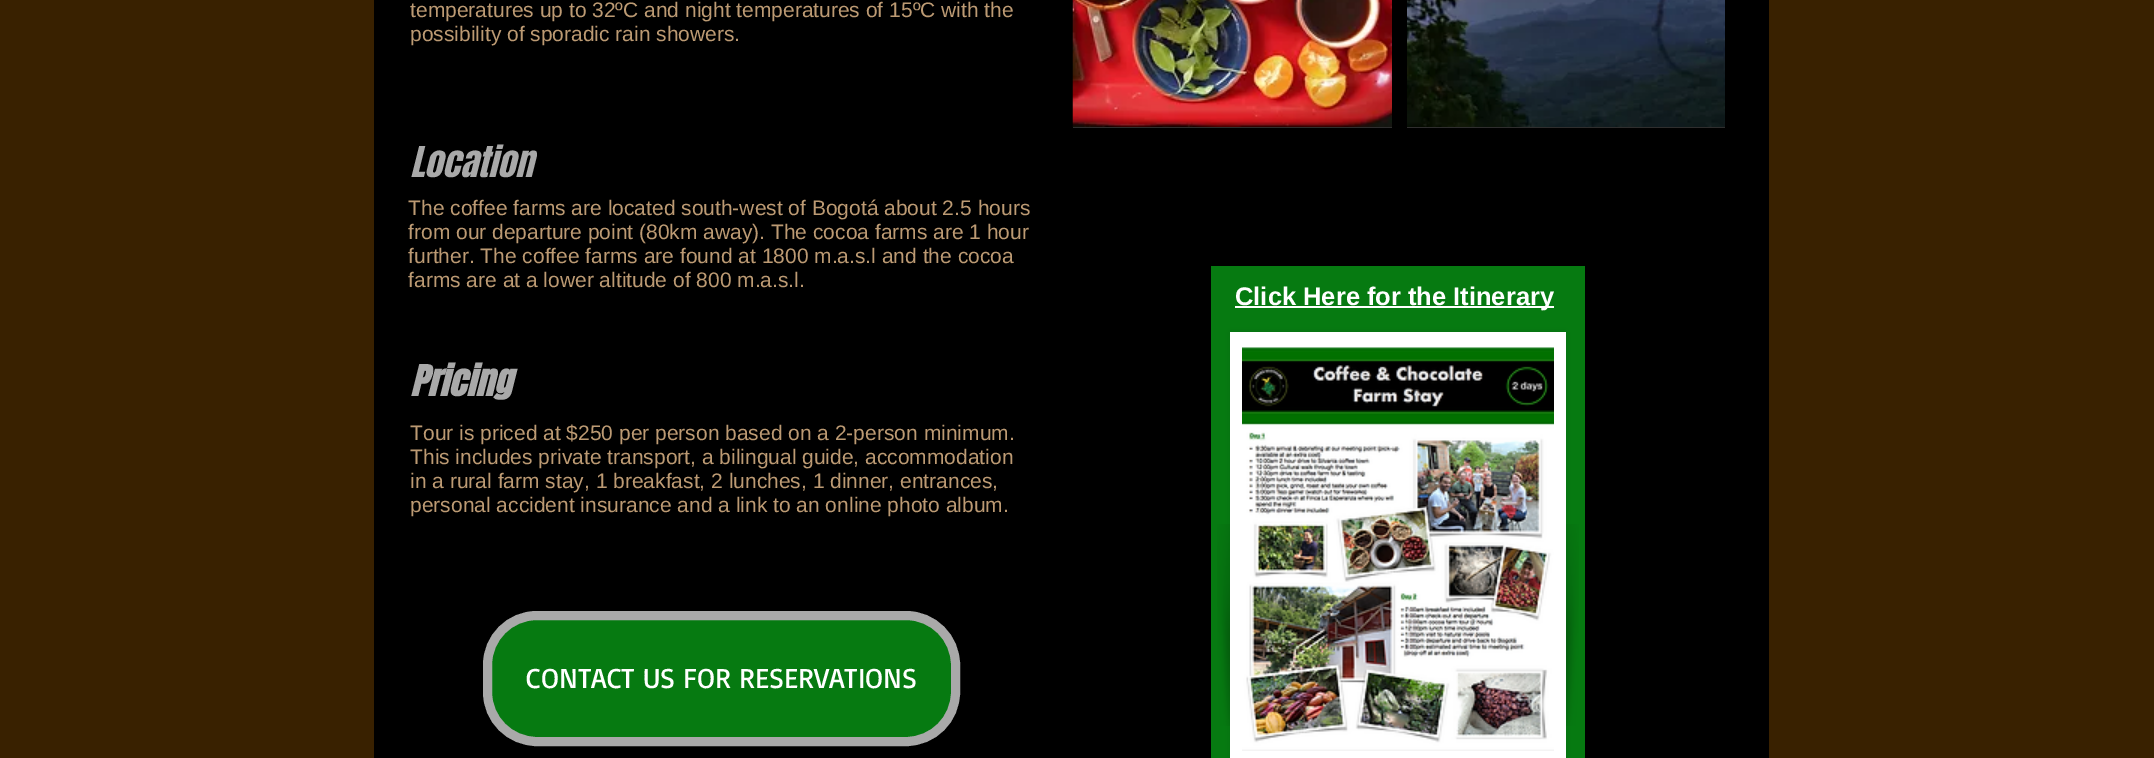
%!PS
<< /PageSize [2154 758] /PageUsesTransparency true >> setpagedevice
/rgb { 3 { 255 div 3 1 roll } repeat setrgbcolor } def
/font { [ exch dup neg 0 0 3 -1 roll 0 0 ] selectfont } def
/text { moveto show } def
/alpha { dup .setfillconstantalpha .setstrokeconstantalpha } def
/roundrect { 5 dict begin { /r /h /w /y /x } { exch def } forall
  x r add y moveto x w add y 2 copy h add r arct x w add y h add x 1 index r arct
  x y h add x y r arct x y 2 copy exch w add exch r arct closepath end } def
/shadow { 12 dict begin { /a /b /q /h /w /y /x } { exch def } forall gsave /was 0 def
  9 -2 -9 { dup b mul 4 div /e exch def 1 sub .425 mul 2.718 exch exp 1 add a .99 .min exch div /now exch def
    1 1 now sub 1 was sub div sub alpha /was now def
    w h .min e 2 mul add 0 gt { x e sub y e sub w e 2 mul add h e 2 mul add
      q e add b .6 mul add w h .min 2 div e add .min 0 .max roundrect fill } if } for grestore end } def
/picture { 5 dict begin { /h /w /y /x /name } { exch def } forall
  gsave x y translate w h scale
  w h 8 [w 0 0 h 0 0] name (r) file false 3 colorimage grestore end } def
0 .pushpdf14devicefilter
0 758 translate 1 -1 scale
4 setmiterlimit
57 33 0 rgb
0 0 2154 758 rectfill
0 0 0 rgb
374 0 1395 758 rectfill
47 46 46 rgb
1073 127 319 1 rectfill
(img_01.rgb) 1072 0 320 127 picture
1407 127 318 1 rectfill
(img_02.rgb) 1407 0 318 127 picture
6 122 17 rgb
1211 266 374 492 rectfill
255 255 255 rgb
1235 306 319 2 rectfill
0 0 0 rgb
1230 332 336 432 0 4 0.1 shadow
255 255 255 rgb
1230 332 336 426 rectfill
(img_03.rgb) 1242 347 312 404 picture
(img_04.rgb) 1217 524 13 202 picture
(img_05.rgb) 1566 524 13 202 picture
6 122 17 rgb
487.5 615.5 468 126 49.5 roundrect gsave fill grestore
169 169 169 rgb
9 setlinewidth
stroke
/LiberationSans-Regular 21 font
188 154 115 rgb
(temperatures up to 32ºC and night temperatures of 15ºC with the) 410 17 text
(possibility of sporadic rain showers.) 410 41 text
/Anton-Italic 36 font
169 169 169 rgb
(Location) 410 177 text
/LiberationSans-Regular 21 font
188 154 115 rgb
(The coffee farms are located south-west of Bogotá about 2.5 hours) 408 215 text
(from our departure point \(80km away\). The cocoa farms are 1 hour) 408 239 text
(further. The coffee farms are found at 1800 m.a.s.l and the cocoa) 408 263 text
(farms are at a lower altitude of 800 m.a.s.l.) 408 287 text
/LiberationSans-Bold 25.5 font
255 255 255 rgb
(Click Here for the Itinerary) 1235 305 text
/Anton-BoldItalic 36 font
169 169 169 rgb
(Pricing) 410 396 text
/LiberationSans-Regular 21 font
188 154 115 rgb
(Tour is priced at $250 per person based on a 2-person minimum.) 410 440 text
(This includes private transport, a bilingual guide, accommodation) 410 464 text
(in a rural farm stay, 1 breakfast, 2 lunches, 1 dinner, entrances,) 410 488 text
(personal accident insurance and a link to an online photo album.) 410 512 text
/Basic-Regular 28.5 font
255 255 255 rgb
(CONTACT US FOR RESERVATIONS) 526 688 text
.poppdf14devicefilter showpage
